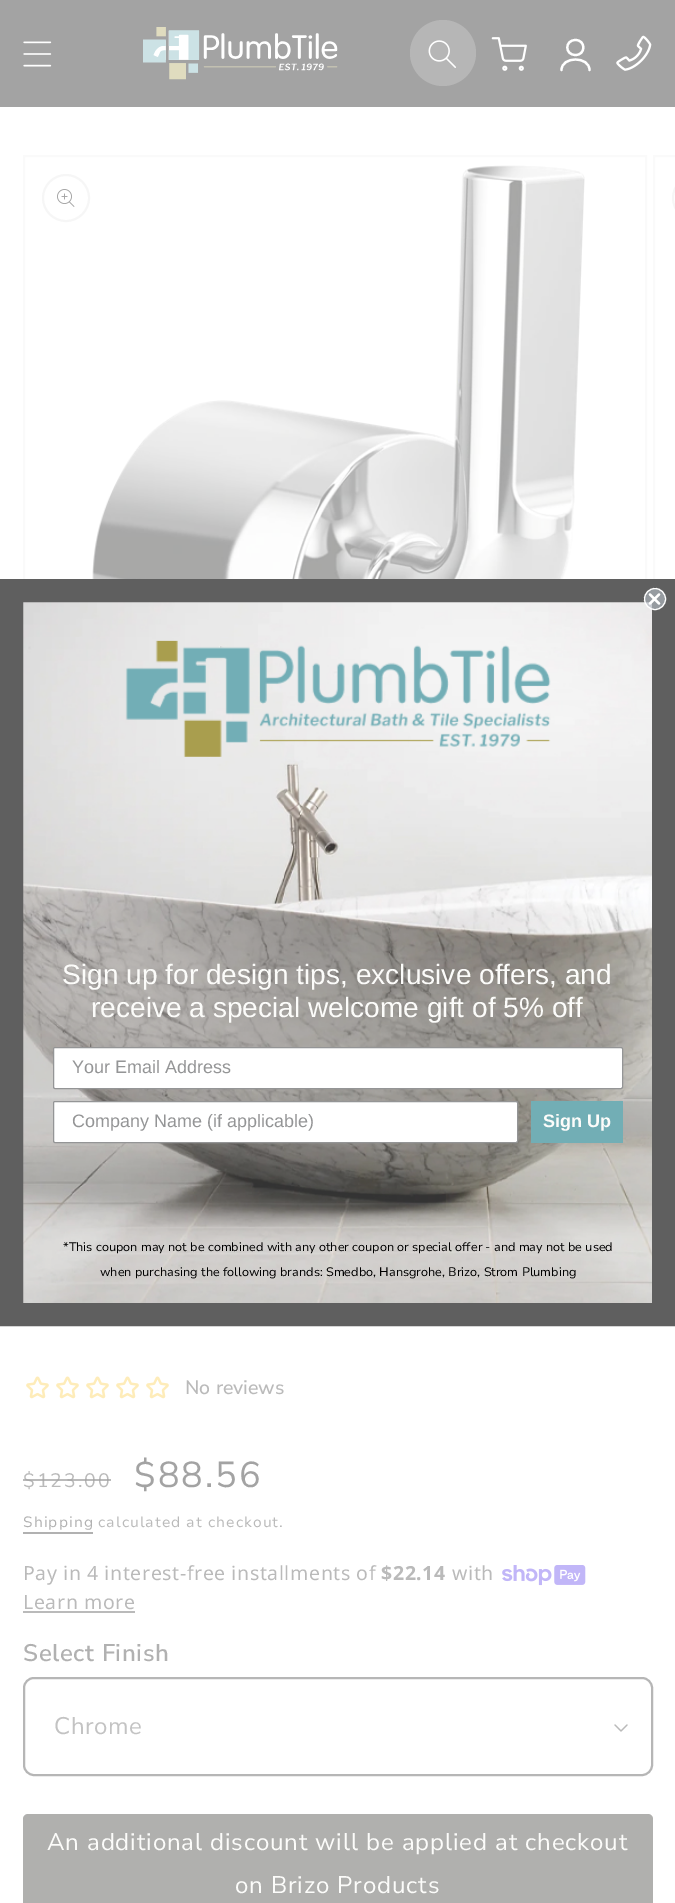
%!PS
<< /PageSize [675 1903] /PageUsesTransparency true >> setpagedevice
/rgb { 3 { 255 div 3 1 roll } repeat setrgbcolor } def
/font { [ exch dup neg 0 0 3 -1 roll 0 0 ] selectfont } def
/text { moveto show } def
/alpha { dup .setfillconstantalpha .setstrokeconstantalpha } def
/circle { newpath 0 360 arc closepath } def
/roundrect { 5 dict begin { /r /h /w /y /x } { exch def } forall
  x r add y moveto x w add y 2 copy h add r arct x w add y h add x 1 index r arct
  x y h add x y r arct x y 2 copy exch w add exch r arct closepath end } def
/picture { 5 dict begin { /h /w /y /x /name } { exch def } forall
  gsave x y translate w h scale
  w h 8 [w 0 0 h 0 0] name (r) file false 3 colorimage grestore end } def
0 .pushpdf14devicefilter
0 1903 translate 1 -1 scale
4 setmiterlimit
255 255 255 rgb
0 0 675 1903 rectfill
163 163 163 rgb
0 0 675 107 rectfill
(img_01.rgb) 23 41 29 26 picture
(img_02.rgb) 143 27 195 53 picture
182 182 182 rgb
443 53 33 circle fill
(img_03.rgb) 428 40 28 28 picture
(img_04.rgb) 491 37 36 34 picture
255 255 255 rgb
2.2 setlinewidth
1 setlinecap
1 setlinejoin
575.5 55 moveto 10.5 0 10.5 -15 0 -15 rcurveto -11 0 -11 15 0 15 rcurveto closepath 589.5 70 moveto 0 -14 -28 -14 -28 0 rcurveto stroke
(img_05.rgb) 616 35 36 36 picture
250 250 250 rgb
2 setlinewidth
0 setlinecap
0 setlinejoin
24 156 622 622 rectstroke
(img_06.rgb) 23 602 629 701 picture
654 156 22 622 rectstroke
95 95 95 rgb
23 setlinewidth
11.5 590.5 652 724 rectstroke
0.65 alpha
180 187 195 rgb
655 599 10.5 circle fill
1 alpha
255 255 255 rgb
1.1 setlinewidth
655 599 10.5 circle stroke
2.2 setlinewidth
1 setlinecap
1 setlinejoin
650 594.5 moveto 9 9 rlineto 650 603.5 moveto 9 -9 rlineto closepath stroke
(img_07.rgb) 125 640 426 117 picture
53.5 1047.5 569 41 1.5 roundrect gsave fill grestore
148 149 150 rgb
1 setlinewidth
0 setlinecap
0 setlinejoin
stroke
255 255 255 rgb
53.5 1101.5 464 41 1.5 roundrect gsave fill grestore
148 149 150 rgb
stroke
114 174 181 rgb
531 1101 92 42 rectfill
246 246 246 rgb
2 setlinewidth
66 198 23 circle stroke
(img_08.rgb) 57 189 18 18 picture
(img_09.rgb) 92 165 493 414 picture
673 175 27 46 23 roundrect stroke
(img_10.rgb) 26 1376 23 23 picture
(img_10.rgb) 56 1376 23 23 picture
(img_10.rgb) 86 1376 23 23 picture
(img_10.rgb) 116 1376 23 23 picture
(img_10.rgb) 146 1376 23 23 picture
177 177 177 rgb
23 1532 70 2 rectfill
(img_11.rgb) 502 1565 84 21 picture
186 186 186 rgb
23 1611 112 2 rectfill
(img_12.rgb) 614 1724 14 8 picture
182 182 182 rgb
24 1678 628 97 10 roundrect stroke
176 176 174 rgb
23 1814 630 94 5 roundrect fill
/LiberationSans-Regular 28.1 font
252 252 250 rgb
(Sign up for design tips, exclusive offers, and) 62 984 text
(receive a special welcome gift of 5% off) 91 1017 text
/LiberationSans-Regular 18 font
148 149 150 rgb
(Your Email Address) 72 1073 text
(Company Name \(if applicable\)) 72 1127 text
/LiberationSans-Bold 18 font
252 252 250 rgb
(Sign Up) 543 1127 text
/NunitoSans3-Regular 12.4 font
0 0 0 rgb
(*This coupon may not be combined with any other coupon or special offer - and may not be used) 63 1251 text
(when purchasing the following brands: Smedbo, Hansgrohe, Brizo, Strom Plumbing) 100 1276 text
/NunitoSans-Medium 19.5 font
186 186 186 rgb
(No reviews) 185 1394 text
/NunitoSans-Regular 19.5 font
23 1487 moveto 2 0 ($123.00) ashow
0.75 alpha
163 163 163 rgb
23 1479 88 2 rectfill
/NunitoSans-Regular 36 font
1 alpha
134 1487 moveto 2 0 ($88.56) ashow
/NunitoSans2-Regular 15 font
177 177 177 rgb
23 1527 moveto 1.05 0 (Shipping) ashow
186 186 186 rgb
98 1527 moveto 1.05 0 (calculated at checkout.) ashow
/NotoSans-Regular 19.5 font
23 1580 moveto 0.6 0 (Pay in 4 interest-free installments of) ashow
/NotoSans-Bold 19.5 font
381 1580 moveto 0.6 0 ($22.14) ashow
/NotoSans-Regular 19.5 font
452 1580 moveto 0.6 0 (with) ashow
23 1609 moveto 0.6 0 (Learn more) ashow
/NunitoSans-SemiBold 24 font
177 177 177 rgb
23 1661 moveto 0.6 0 (Select Finish) ashow
/NunitoSans-Regular 24 font
195 195 195 rgb
54 1734 moveto 0.6 0 (Chrome) ashow
252 252 250 rgb
47 1850 moveto 0.9 0 (An additional discount will be applied at checkout) ashow
235 1893 moveto 0.9 0 (on Brizo Products) ashow
.poppdf14devicefilter showpage
